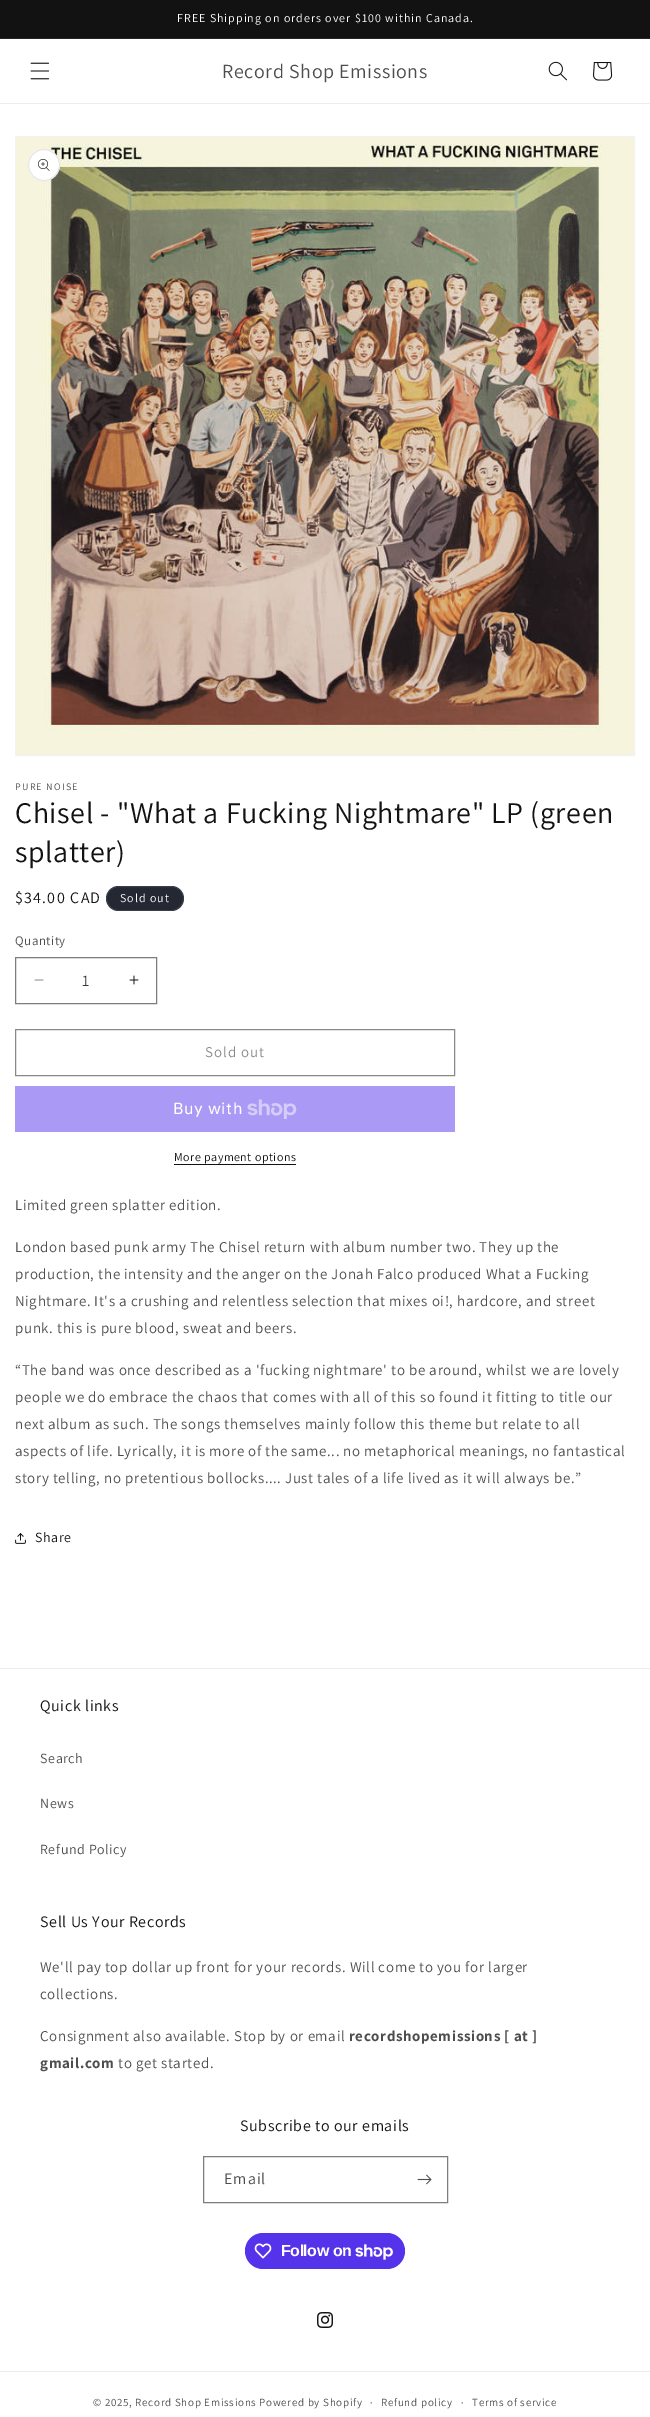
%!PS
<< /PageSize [650 2417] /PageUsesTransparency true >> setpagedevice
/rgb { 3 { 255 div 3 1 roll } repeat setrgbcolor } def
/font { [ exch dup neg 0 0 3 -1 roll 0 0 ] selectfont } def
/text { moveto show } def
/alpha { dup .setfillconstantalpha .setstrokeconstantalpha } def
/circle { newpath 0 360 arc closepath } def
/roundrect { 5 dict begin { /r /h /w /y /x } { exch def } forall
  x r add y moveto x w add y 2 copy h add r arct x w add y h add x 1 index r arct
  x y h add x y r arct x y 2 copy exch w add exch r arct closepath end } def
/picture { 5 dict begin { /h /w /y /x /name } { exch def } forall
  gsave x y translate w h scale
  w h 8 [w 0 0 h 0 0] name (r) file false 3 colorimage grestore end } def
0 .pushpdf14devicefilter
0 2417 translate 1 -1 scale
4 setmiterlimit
255 255 255 rgb
0 0 650 2417 rectfill
18 18 18 rgb
0 0 650 38 rectfill
37 37 37 rgb
0 38 650 1 rectfill
236 236 236 rgb
0 103 650 1 rectfill
(img_01.rgb) 30 62 20 18 picture
(img_02.rgb) 548 61 19 20 picture
(img_03.rgb) 593 62 20 19 picture
243 243 243 rgb
15.5 136.5 619 619 rectstroke
(img_04.rgb) 16 137 618 618 picture
255 255 255 rgb
44 165 16 circle fill
0.1 alpha
18 18 18 rgb
44 165 15.5 circle stroke
1 alpha
(img_05.rgb) 38 159 12 12 picture
36 40 51 rgb
106 886 78 25 12.5 roundrect fill
0.1 alpha
255 255 255 rgb
106.5 886.5 77 24 12 roundrect stroke
1 alpha
(img_06.rgb) 34 979 10 2 picture
(img_07.rgb) 129 975 10 10 picture
125 125 125 rgb
15.5 957.5 141 46 rectstroke
137 137 137 rgb
15.5 1029.5 439 46 rectstroke
170 153 245 rgb
15 1086 440 46 rectfill
(img_08.rgb) 247 1099 50 20 picture
18 18 18 rgb
174 1164 122 1 rectfill
(img_09.rgb) 15 1533 11 11 picture
236 236 236 rgb
0 1668 650 1 rectfill
125 125 125 rgb
203.5 2156.5 244 46 rectstroke
(img_10.rgb) 417 2174 15 11 picture
84 51 235 rgb
245 2233 160 36 18 roundrect fill
(img_11.rgb) 254 2243 18 16 picture
(img_12.rgb) 355 2244 38 16 picture
(img_13.rgb) 317 2312 16 16 picture
236 236 236 rgb
0 2371 650 1 rectfill
/Assistant-Regular 12 font
255 255 255 rgb
177 22 moveto 1 0 (FREE Shipping on orders over $100 within Canada.) ashow
/Assistant-Regular 20 font
77 77 77 rgb
222 78 moveto 0.6 0 (Record Shop Emissions) ashow
/Assistant-Regular 10 font
15 790 moveto 1.25 0 (PURE NOISE) ashow
/Assistant-Regular 30 font
18 18 18 rgb
15 823 moveto 0.6 0 (Chisel - "What a Fucking Nightmare" LP \(green) ashow
15 862 moveto 0.6 0 (splatter\)) ashow
/Assistant-Regular 16 font
15 903 moveto 1.25 0 ($34.00 CAD) ashow
/Assistant-Regular 12 font
255 255 255 rgb
120 902 moveto 1 0 (Sold out) ashow
/Assistant-Regular 13 font
77 77 77 rgb
15 945 moveto 0.5 0 (Quantity) ashow
/Assistant-Regular 16 font
54 54 54 rgb
(1) 82 986 text
/Assistant-Regular 15 font
137 137 137 rgb
205 1057 moveto 1 0 (Sold out) ashow
/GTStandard-Regular 16 font
255 255 255 rgb
173 1114 moveto 0.6 0 (Buy with) ashow
/Assistant-Regular 12 font
18 18 18 rgb
174 1161 moveto 0.5 0 (More payment options) ashow
/Assistant-Regular 15 font
77 77 77 rgb
15 1210 moveto 0.6 0 (Limited green splatter edition.) ashow
15 1252 moveto 0.6 0 (London based punk army The Chisel return with album number two. They up the) ashow
15 1279 moveto 0.6 0 (production, the intensity and the anger on the Jonah Falco produced What a Fucking) ashow
15 1306 moveto 0.6 0 (Nightmare. It's a crushing and relentless selection that mixes oi!, hardcore, and street) ashow
15 1333 moveto 0.6 0 (punk. this is pure blood, sweat and beers.) ashow
15 1375 moveto 0.6 0 (“The band was once described as a 'fucking nightmare' to be around, whilst we are lovely) ashow
15 1402 moveto 0.6 0 (people we do embrace the chaos that comes with all of this so found it fitting to title our) ashow
15 1429 moveto 0.6 0 (next album as such. The songs themselves mainly follow this theme but relate to all) ashow
15 1456 moveto 0.6 0 (aspects of life. Lyrically, it is more of the same... no metaphorical meanings, no fantastical) ashow
15 1483 moveto 0.6 0 (story telling, no pretentious bollocks.... Just tales of a life lived as it will always be.”) ashow
/Assistant-Regular 14 font
18 18 18 rgb
35 1542 moveto 0.6 0 (Share) ashow
/Assistant-Regular 16 font
40 1711 moveto 0.6 0 (Quick links) ashow
/Assistant-Regular 14 font
77 77 77 rgb
40 1763 moveto 0.6 0 (Search) ashow
40 1808 moveto 0.6 0 (News) ashow
40 1854 moveto 0.6 0 (Refund Policy) ashow
/Assistant-Regular 16 font
18 18 18 rgb
40 1927 moveto 0.6 0 (Sell Us Your Records) ashow
/Assistant-Regular 15 font
77 77 77 rgb
40 1972 moveto 0.6 0 (We'll pay top dollar up front for your records. Will come to you for larger) ashow
40 1999 moveto 0.6 0 (collections.) ashow
40 2041 moveto 0.6 0 (Consignment also available. Stop by or email) ashow
/Assistant-Bold 15 font
349 2041 moveto 0.6 0 (recordshopemissions [ at ]) ashow
40 2068 moveto 0.6 0 (gmail.com) ashow
/Assistant-Regular 15 font
118 2068 moveto 0.6 0 (to get started.) ashow
/Assistant-Regular 16 font
18 18 18 rgb
240 2131 moveto 0.6 0 (Subscribe to our emails) ashow
77 77 77 rgb
224 2184 moveto 1 0 (Email) ashow
/LiberationSans-Bold 16 font
255 255 255 rgb
281 2256 moveto -0.5 0 (Follow on) ashow
/Assistant-Regular 11 font
77 77 77 rgb
93 2406 moveto 0.7 0 (© 2025, Record Shop Emissions Powered by Shopify) ashow
/Assistant-Regular 10 font
370 2406 moveto 0.7 0 (·) ashow
/Assistant-Regular 11 font
381 2406 moveto 0.7 0 (Refund policy) ashow
/Assistant-Regular 10 font
461 2406 moveto 0.7 0 (·) ashow
/Assistant-Regular 11 font
472 2406 moveto 0.7 0 (Terms of service) ashow
.poppdf14devicefilter showpage
